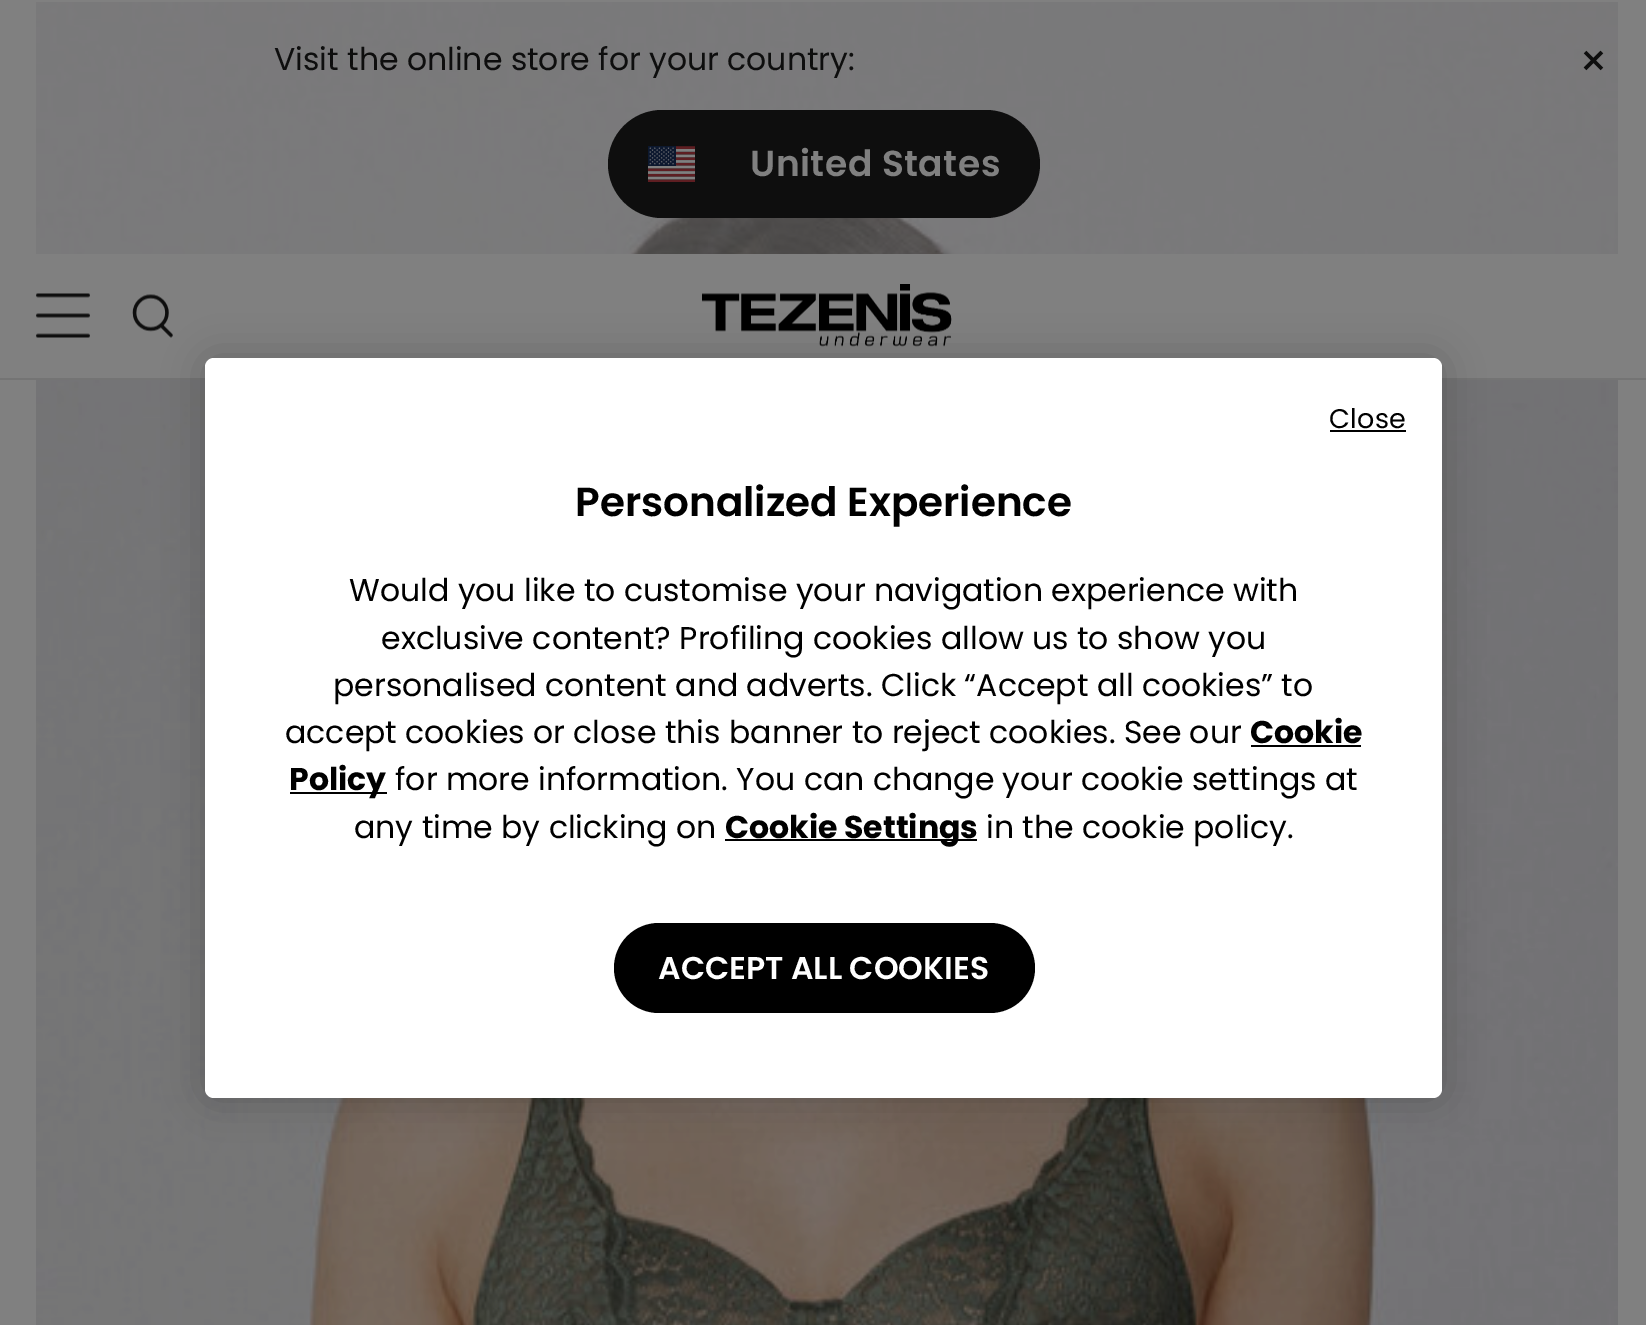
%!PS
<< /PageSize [1646 1325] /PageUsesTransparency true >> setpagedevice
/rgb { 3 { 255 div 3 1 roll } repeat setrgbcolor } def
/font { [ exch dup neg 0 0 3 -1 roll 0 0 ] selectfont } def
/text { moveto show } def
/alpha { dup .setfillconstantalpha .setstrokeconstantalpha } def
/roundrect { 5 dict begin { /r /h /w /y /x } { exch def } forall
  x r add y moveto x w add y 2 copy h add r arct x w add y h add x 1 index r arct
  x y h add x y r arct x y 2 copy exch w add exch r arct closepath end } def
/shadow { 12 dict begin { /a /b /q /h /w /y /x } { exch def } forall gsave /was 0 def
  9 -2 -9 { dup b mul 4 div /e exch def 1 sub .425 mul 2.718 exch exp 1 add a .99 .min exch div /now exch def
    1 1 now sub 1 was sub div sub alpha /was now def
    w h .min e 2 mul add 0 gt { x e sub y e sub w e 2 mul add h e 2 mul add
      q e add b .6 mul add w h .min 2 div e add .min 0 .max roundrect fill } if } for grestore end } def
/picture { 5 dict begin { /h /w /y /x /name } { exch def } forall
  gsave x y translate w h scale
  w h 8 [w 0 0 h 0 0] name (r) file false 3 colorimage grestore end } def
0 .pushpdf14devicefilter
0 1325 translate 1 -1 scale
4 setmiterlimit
128 128 128 rgb
0 0 1646 1325 rectfill
(img_01.rgb) 36 2 1582 1323 picture
0.5 alpha
36 2 1582 252 rectfill
1 alpha
14 14 14 rgb
608 110 432 108 54 roundrect fill
(img_02.rgb) 648 146 47 36 picture
128 128 128 rgb
36 254 1582 124 rectfill
116 116 116 rgb
0 378 1646 2 rectfill
(img_03.rgb) 36 293 54 45 picture
(img_04.rgb) 132 294 41 44 picture
(img_05.rgb) 702 284 250 63 picture
0 0 0 rgb
205 358 1237 740 9 20 0.2 shadow
255 255 255 rgb
205 358 1237 740 9 roundrect fill
0 0 0 rgb
1330 430 76 2 rectfill
1251 745 110 2 rectfill
290 792 97 2 rectfill
725 839 252 2 rectfill
614 923 421 90 45 roundrect fill
/Poppins-Regular 31.5 font
14 14 14 rgb
(Visit the online store for your country:) 274 70 text
/Poppins-Regular 45 font
1579 77 moveto 0.5 0 (×) ashow
/Poppins-SemiBold 36 font
128 128 128 rgb
750 176 moveto 0.5 0 (United States) ashow
/Poppins-Regular 27 font
0 0 0 rgb
1329 428 moveto 0.25 0 (Close) ashow
/Poppins-SemiBold 40.5 font
(Personalized Experience) 575 516 text
/Poppins-Regular 31.5 font
(Would you like to customise your navigation experience with) 349 601 text
(exclusive content? Profiling cookies allow us to show you) 381 649 text
(personalised content and adverts. Click “Accept all cookies” to) 333 696 text
(accept cookies or close this banner to reject cookies. See our) 285 743 text
/Poppins-Bold 31.5 font
(Cookie) 1250 743 text
(Policy) 289 790 text
/Poppins-Regular 31.5 font
(for more information. You can change your cookie settings at) 395 790 text
(any time by clicking on) 354 838 text
/Poppins-Bold 31.5 font
(Cookie Settings) 725 838 text
/Poppins-Regular 31.5 font
(in the cookie policy.) 986 838 text
/Poppins-SemiBold 31.5 font
255 255 255 rgb
(ACCEPT ALL COOKIES) 658 979 text
.poppdf14devicefilter showpage
